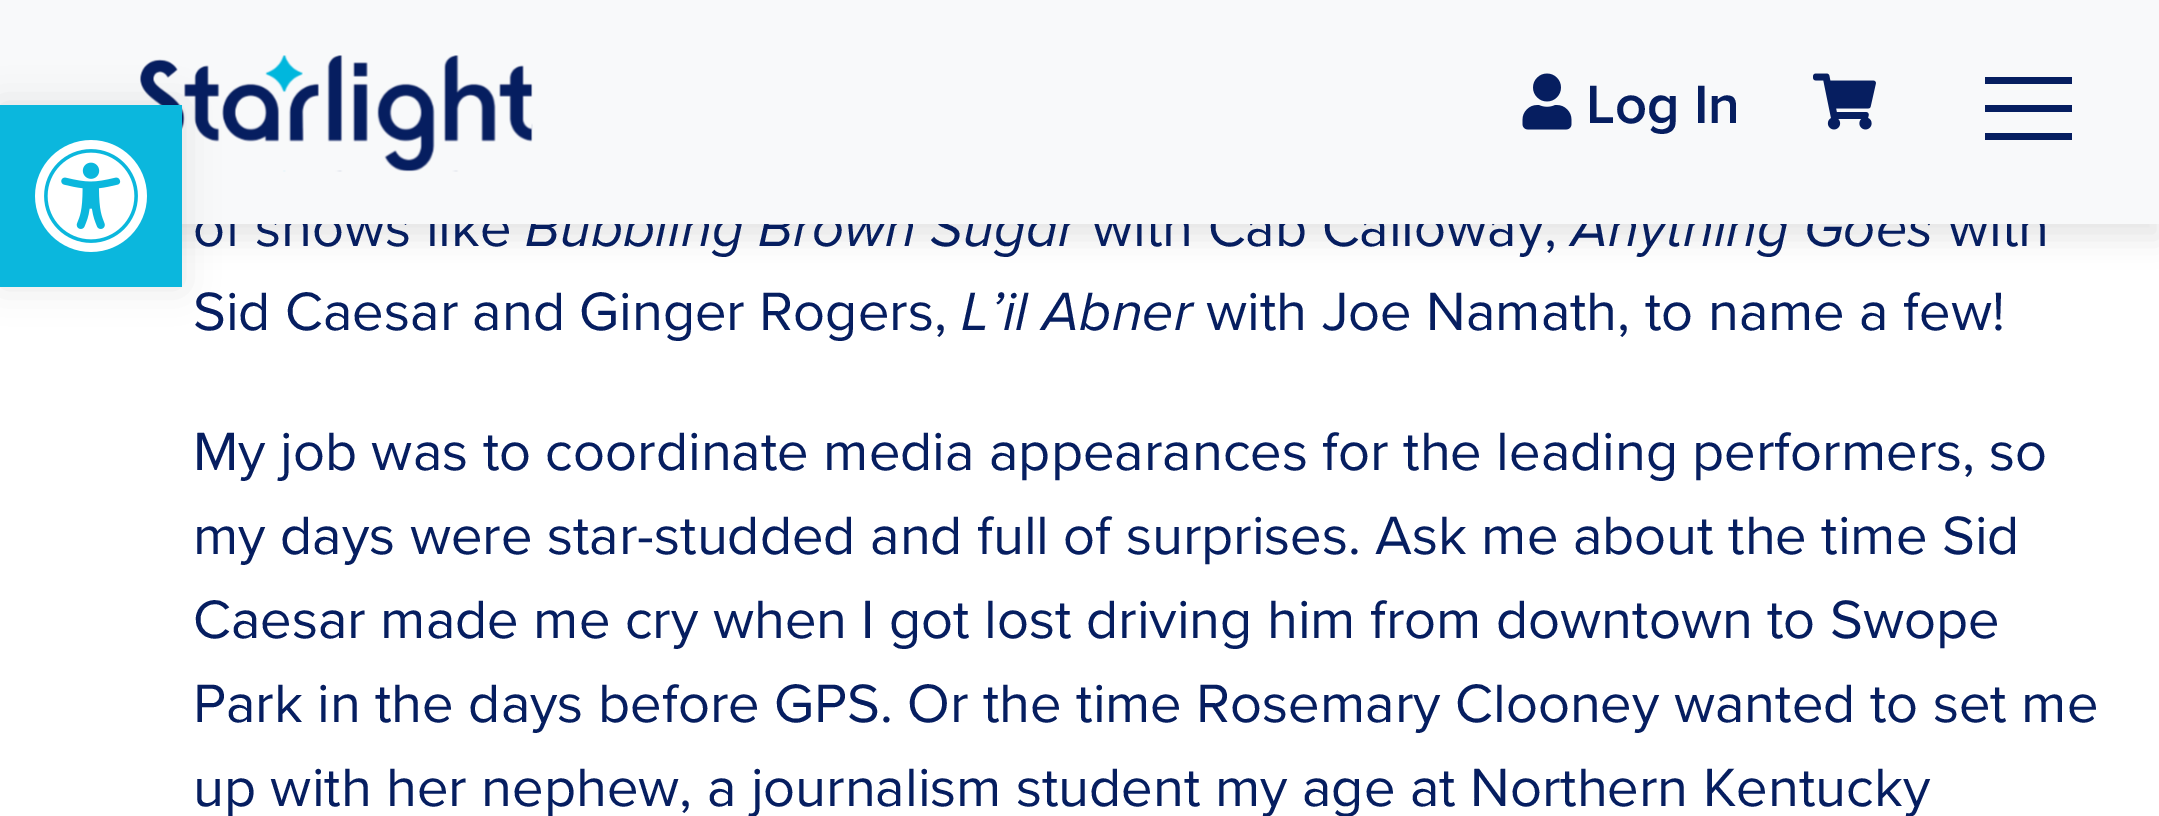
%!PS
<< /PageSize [2159 816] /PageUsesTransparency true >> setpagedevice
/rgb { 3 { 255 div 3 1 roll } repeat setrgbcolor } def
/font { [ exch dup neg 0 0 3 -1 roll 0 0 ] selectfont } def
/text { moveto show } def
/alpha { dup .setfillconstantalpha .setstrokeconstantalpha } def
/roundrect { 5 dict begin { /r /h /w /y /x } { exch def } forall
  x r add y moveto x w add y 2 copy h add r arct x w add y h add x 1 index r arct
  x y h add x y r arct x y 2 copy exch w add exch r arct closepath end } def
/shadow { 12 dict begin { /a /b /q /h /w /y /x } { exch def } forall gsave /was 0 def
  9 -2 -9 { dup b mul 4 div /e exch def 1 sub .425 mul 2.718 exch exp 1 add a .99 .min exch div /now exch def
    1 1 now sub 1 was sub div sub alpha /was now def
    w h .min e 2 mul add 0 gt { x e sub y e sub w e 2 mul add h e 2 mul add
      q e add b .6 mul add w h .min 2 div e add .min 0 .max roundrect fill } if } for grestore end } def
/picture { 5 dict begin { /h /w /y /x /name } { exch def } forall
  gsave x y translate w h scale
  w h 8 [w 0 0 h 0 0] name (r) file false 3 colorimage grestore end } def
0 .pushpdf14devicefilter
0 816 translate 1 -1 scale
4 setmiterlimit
255 255 255 rgb
0 0 2159 816 rectfill
0 0 0 rgb
0 14 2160 224 0 14 0.1 shadow
/ProximaNova-Regular 56 font
6 30 96 rgb
(of shows like) 193 246 text
/ProximaNova-Italic 56 font
(Bubbling Brown Sugar) 525 246 text
/ProximaNova-Regular 56 font
(with Cab Calloway,) 1092 246 text
/ProximaNova-Italic 56 font
(Anything Goes) 1571 246 text
/ProximaNova-Regular 56 font
(with) 1948 246 text
248 249 250 rgb
0 0 2159 224 rectfill
(img_02.rgb) 139 55 394 117 picture
0 0 0 rgb
0 105 182 182 0 17.5 0.1 shadow
11 183 221 rgb
0 105 182 182 rectfill
(img_01.rgb) 35 140 112 112 picture
(img_04.rgb) 1813 73 63 57 picture
/ProximaNova-SemiBold 56 font
6 30 96 rgb
(Log In) 1586 123 text
(img_03.rgb) 1522 73 50 57 picture
1985 133 87 7 rectfill
1985 105 87 7 rectfill
1985 77 87 7 rectfill
/ProximaNova-Regular 56 font
(Sid Caesar and Ginger Rogers,) 193 330 text
/ProximaNova-Italic 56 font
(L’il Abner) 961 330 text
/ProximaNova-Regular 56 font
(with Joe Namath, to name a few!) 1206 330 text
(My job was to coordinate media appearances for the leading performers, so) 193 470 text
(my days were star-studded and full of surprises. Ask me about the time Sid) 193 554 text
(Caesar made me cry when I got lost driving him from downtown to Swope) 193 638 text
(Park in the days before GPS. Or the time Rosemary Clooney wanted to set me) 193 722 text
(up with her nephew, a journalism student my age at Northern Kentucky) 193 806 text
.poppdf14devicefilter showpage
